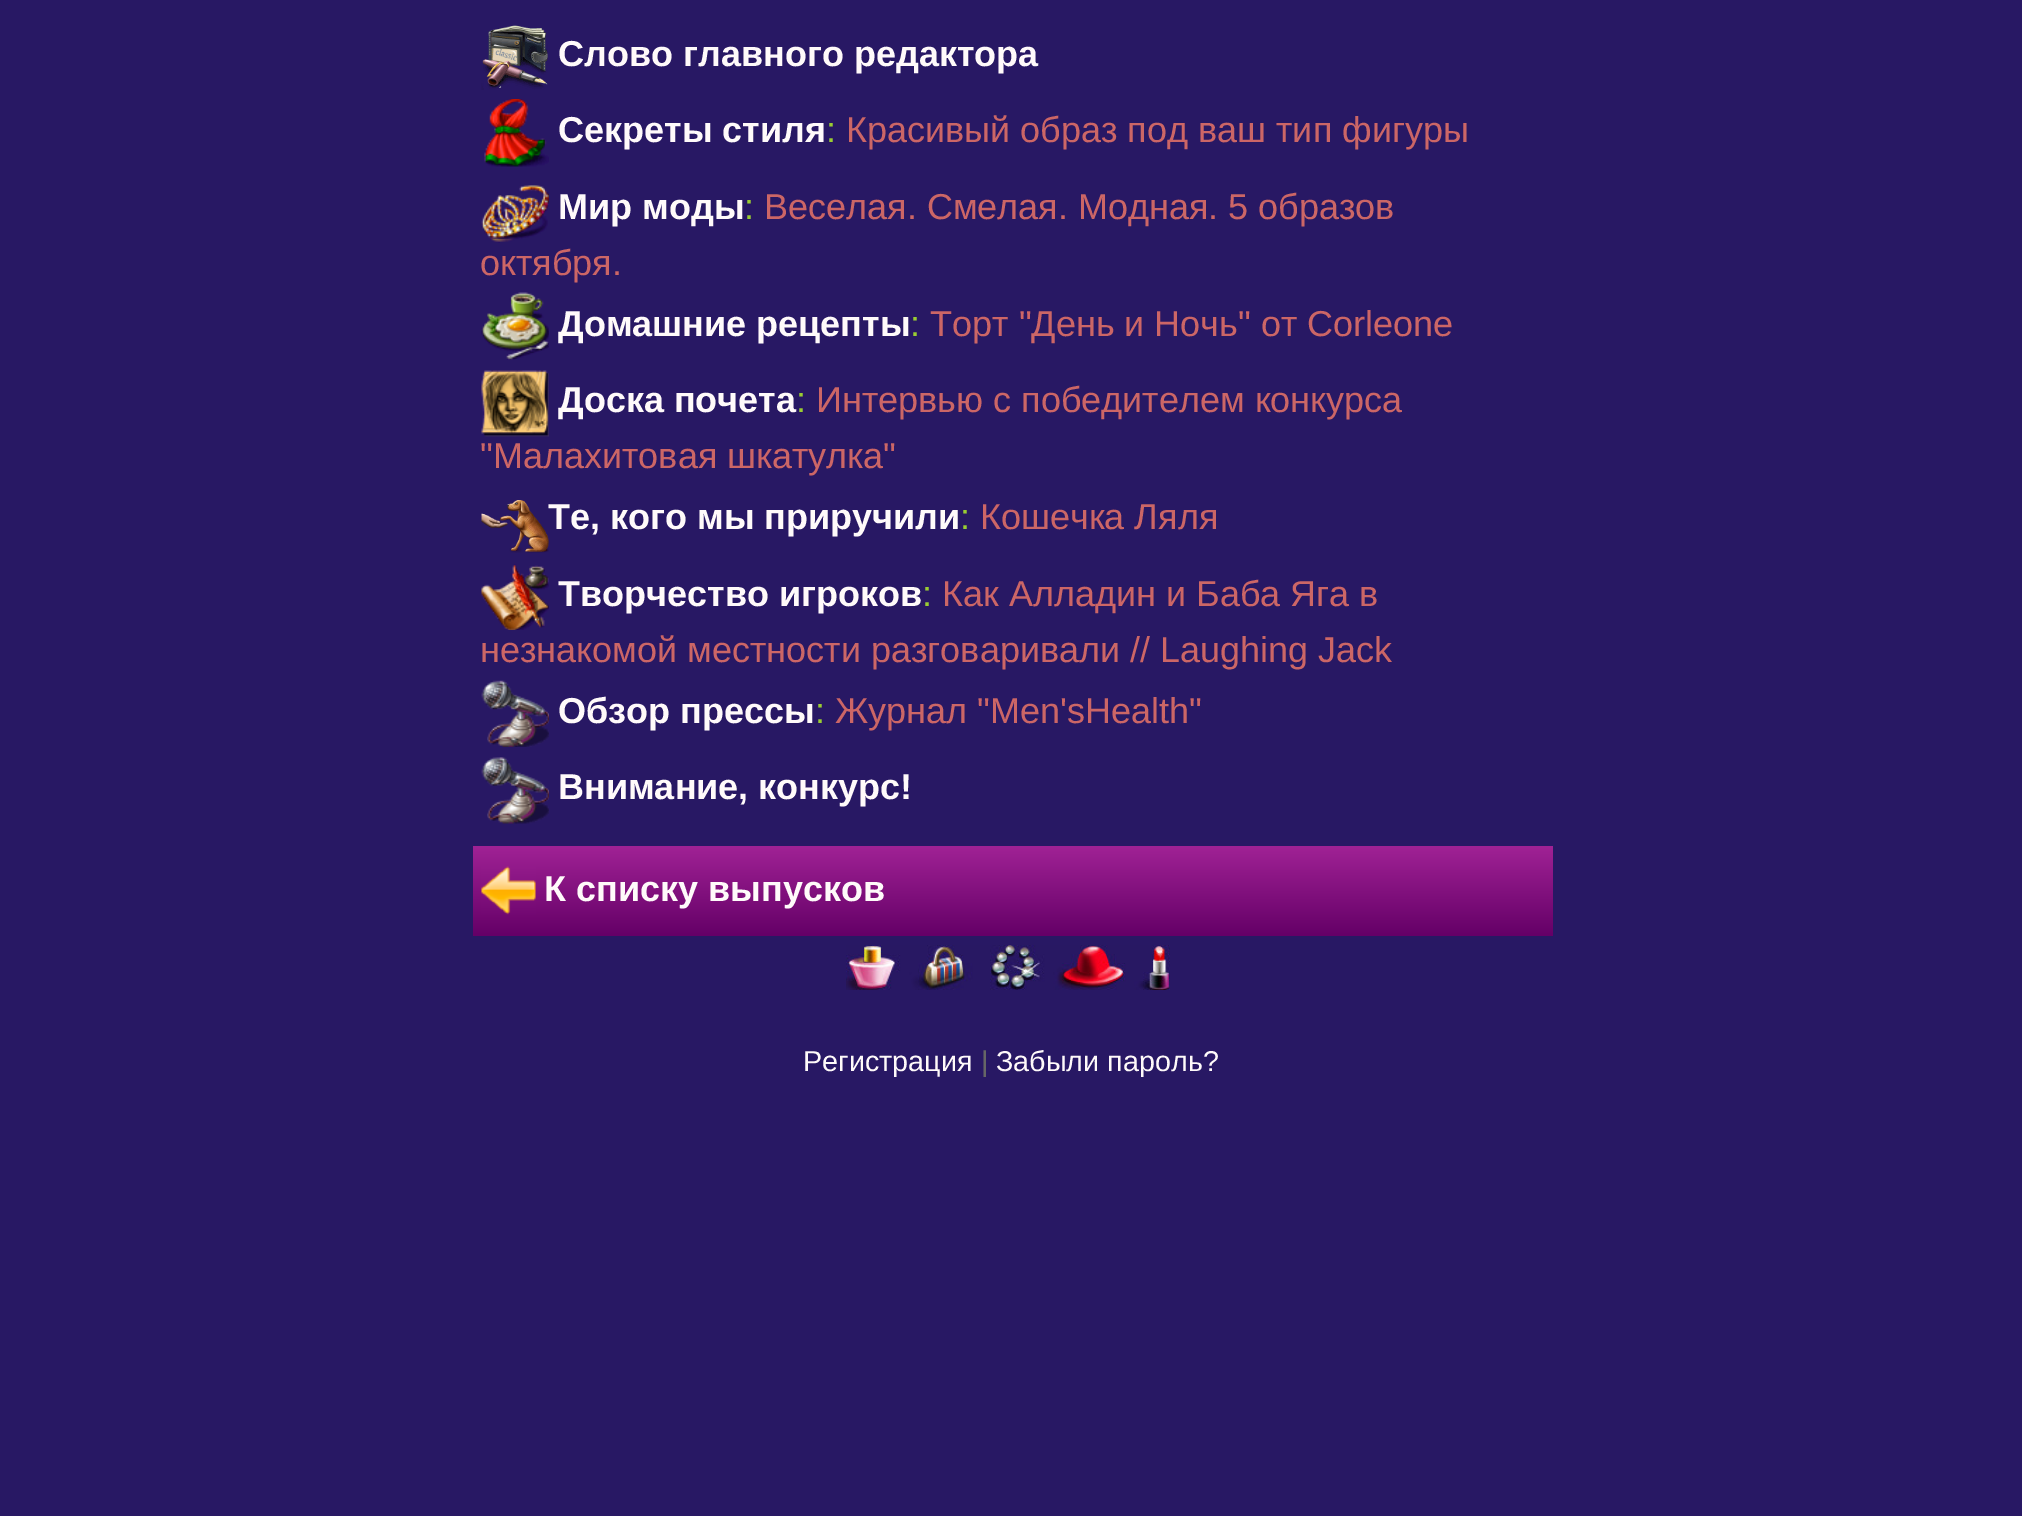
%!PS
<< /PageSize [2022 1516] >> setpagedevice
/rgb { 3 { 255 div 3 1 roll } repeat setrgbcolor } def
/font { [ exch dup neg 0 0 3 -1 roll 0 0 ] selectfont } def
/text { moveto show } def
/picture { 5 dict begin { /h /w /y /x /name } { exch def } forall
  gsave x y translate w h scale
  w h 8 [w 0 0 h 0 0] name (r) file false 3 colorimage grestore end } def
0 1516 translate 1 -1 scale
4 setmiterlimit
40 24 100 rgb
0 0 2022 1516 rectfill
(img_01.rgb) 481 25 67 65 picture
(img_02.rgb) 484 99 65 68 picture
(img_03.rgb) 481 185 68 58 picture
(img_04.rgb) 481 292 68 68 picture
(img_05.rgb) 481 370 68 67 picture
(img_06.rgb) 481 500 68 53 picture
(img_07.rgb) 481 564 68 66 picture
(img_08.rgb) 481 680 68 67 picture
(img_09.rgb) 481 757 68 67 picture
gsave 473 846 moveto 1080 0 rlineto 0 90 rlineto -1080 0 rlineto closepath clip newpath
<< /ShadingType 2 /ColorSpace /DeviceRGB /Coords [473 846 473 936] /Extend [true true] /Function << /FunctionType 2 /Domain [0 1] /C0 [0.627 0.133 0.584] /C1 [0.392 0 0.404] /N 1 >> >> shfill grestore
(img_10.rgb) 481 866 55 49 picture
(img_11.rgb) 846 945 324 45 picture
/LiberationSans-Bold 36 font
255 250 250 rgb
(Слово главного редактора) 558 66 text
(Секреты стиля) 558 142 text
/LiberationSans-Regular 36 font
154 205 50 rgb
(:) 826 142 text
204 102 102 rgb
(Красивый образ под ваш тип фигуры) 846 142 text
/LiberationSans-Bold 36 font
255 250 250 rgb
(Мир моды) 558 219 text
/LiberationSans-Regular 36 font
154 205 50 rgb
(:) 744 219 text
204 102 102 rgb
(Веселая. Смелая. Модная. 5 образов) 764 219 text
(октября.) 480 275 text
/LiberationSans-Bold 36 font
255 250 250 rgb
(Домашние рецепты) 558 336 text
/LiberationSans-Regular 36 font
154 205 50 rgb
(:) 910 336 text
204 102 102 rgb
(Торт "День и Ночь" от Corleone) 930 336 text
/LiberationSans-Bold 36 font
255 250 250 rgb
(Доска почета) 558 412 text
/LiberationSans-Regular 36 font
154 205 50 rgb
(:) 796 412 text
204 102 102 rgb
(Интервью с победителем конкурса) 816 412 text
("Малахитовая шкатулка") 480 468 text
/LiberationSans-Bold 36 font
255 250 250 rgb
(Те, кого мы приручили) 548 529 text
/LiberationSans-Regular 36 font
154 205 50 rgb
(:) 960 529 text
204 102 102 rgb
(Кошечка Ляля) 980 529 text
/LiberationSans-Bold 36 font
255 250 250 rgb
(Творчество игроков) 558 606 text
/LiberationSans-Regular 36 font
154 205 50 rgb
(:) 922 606 text
204 102 102 rgb
(Как Алладин и Баба Яга в) 942 606 text
(незнакомой местности разговаривали // Laughing Jack) 480 662 text
/LiberationSans-Bold 36 font
255 250 250 rgb
(Обзор прессы) 558 723 text
/LiberationSans-Regular 36 font
154 205 50 rgb
(:) 815 723 text
204 102 102 rgb
(Журнал "Men'sHealth") 835 723 text
/LiberationSans-Bold 36 font
255 250 250 rgb
(Внимание, конкурс!) 558 799 text
(К списку выпусков) 544 901 text
/LiberationSans-Regular 28.75 font
(Регистрация) 803 1071 text
102 102 102 rgb
(|) 981 1071 text
255 250 250 rgb
(Забыли пароль?) 996 1071 text
showpage
